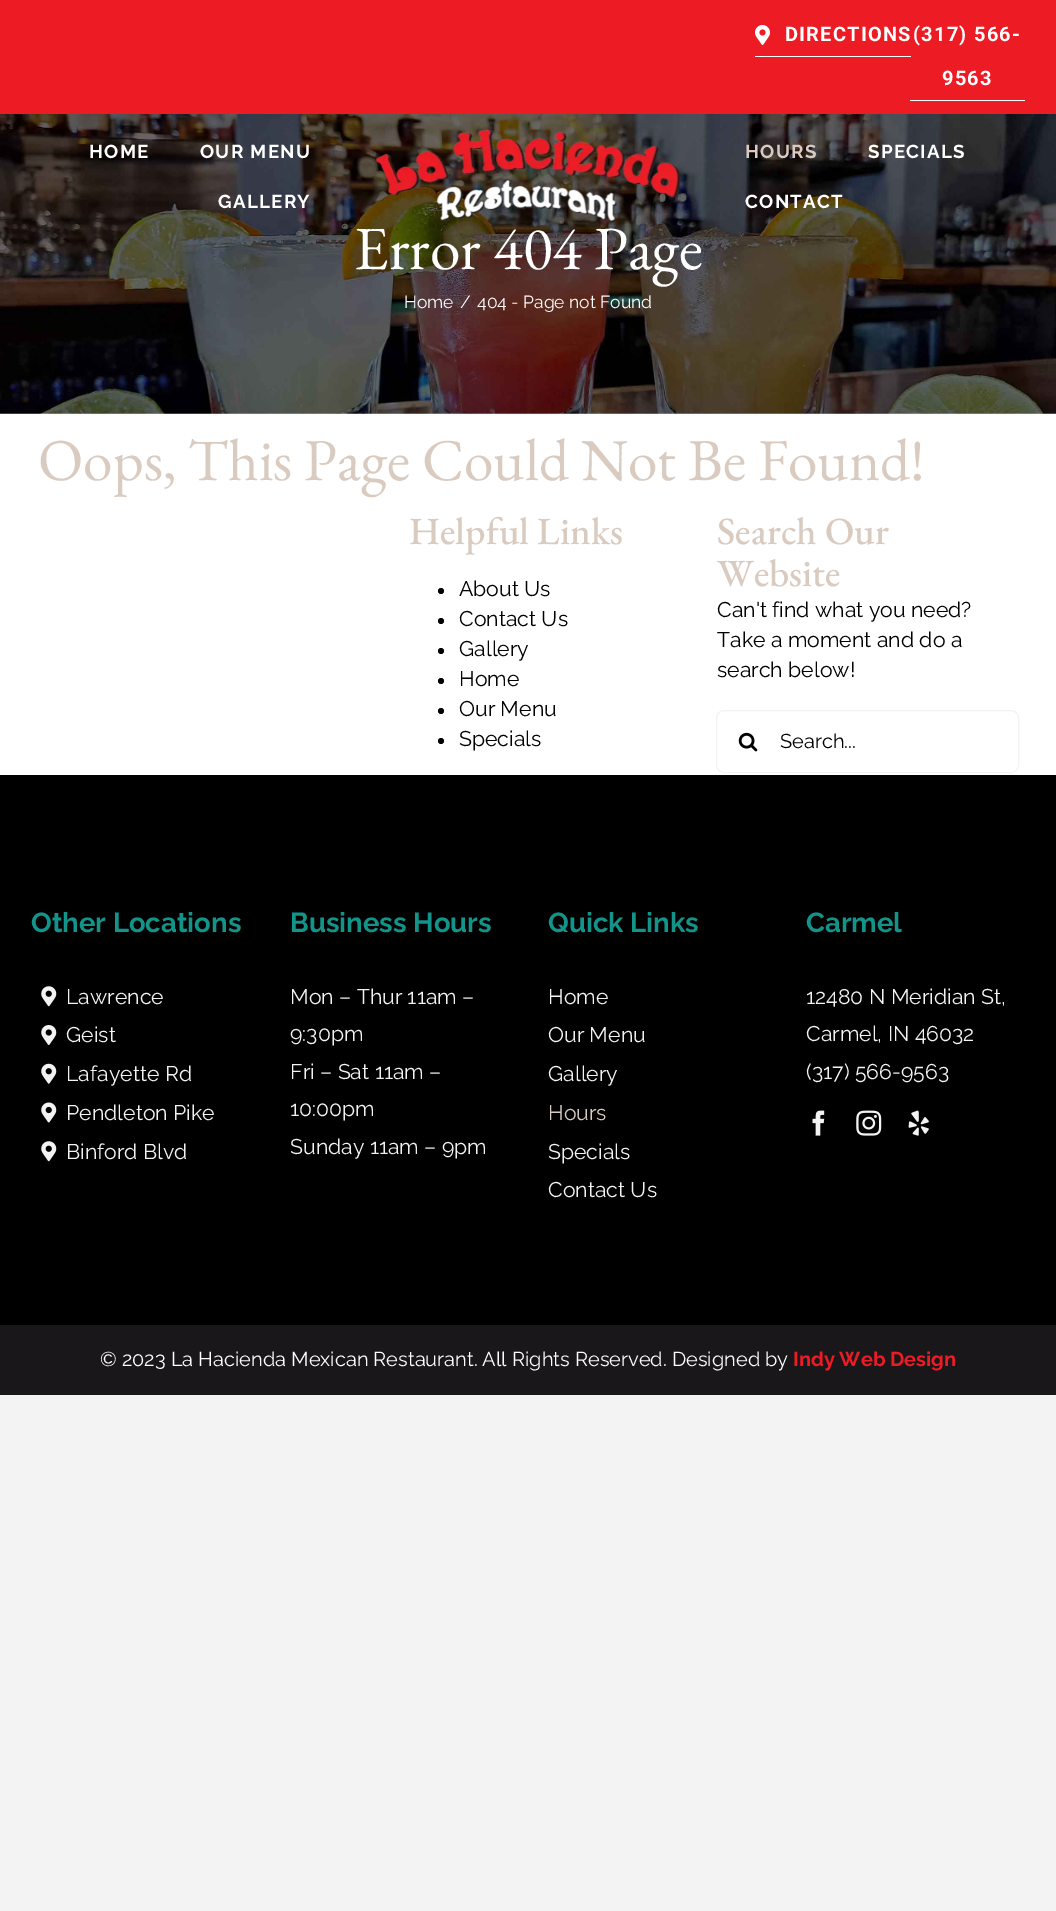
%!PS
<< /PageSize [1056 1911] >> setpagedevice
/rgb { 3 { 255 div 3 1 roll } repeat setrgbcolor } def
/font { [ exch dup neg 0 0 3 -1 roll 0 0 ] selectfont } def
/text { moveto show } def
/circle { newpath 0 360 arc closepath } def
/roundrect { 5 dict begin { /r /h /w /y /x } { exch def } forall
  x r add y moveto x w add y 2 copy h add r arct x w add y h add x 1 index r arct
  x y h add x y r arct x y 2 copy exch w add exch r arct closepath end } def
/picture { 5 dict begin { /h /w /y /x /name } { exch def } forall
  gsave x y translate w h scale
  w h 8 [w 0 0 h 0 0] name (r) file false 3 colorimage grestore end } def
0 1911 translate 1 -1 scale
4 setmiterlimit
243 243 243 rgb
0 0 1056 1911 rectfill
255 255 255 rgb
0 413 1056 362 rectfill
237 28 36 rgb
0 0 1056 114 rectfill
255 255 255 rgb
755 56 156 1 rectfill
(img_01.rgb) 755 25 15 20 picture
910 100 115 1 rectfill
(img_03.rgb) 0 114 1056 300 picture
(img_02.rgb) 376 130 304 92 picture
0 0 0 rgb
441 591 3 circle fill
441 621 3 circle fill
441 651 3 circle fill
441 681 3 circle fill
441 711 3 circle fill
441 741 3 circle fill
243 243 243 rgb
716.5 710.5 302 62 7.5 roundrect stroke
(img_04.rgb) 738 732 20 20 picture
0 0 0 rgb
0 775 1056 550 rectfill
(img_05.rgb) 41 986 16 21 picture
(img_06.rgb) 41 1025 16 20 picture
(img_07.rgb) 41 1063 16 21 picture
(img_08.rgb) 41 1102 16 21 picture
(img_05.rgb) 41 1141 16 21 picture
(img_09.rgb) 812 1110 13 26 picture
(img_10.rgb) 856 1110 26 26 picture
(img_11.rgb) 908 1110 21 26 picture
26 23 26 rgb
0 1325 1056 70 rectfill
/Roboto-Bold 20 font
255 255 255 rgb
785 41 moveto 1.25 0 (DIRECTIONS) ashow
913 41 moveto 1.25 0 (\(317\) 566-) ashow
942 85 moveto 1.25 0 (9563) ashow
/Raleway-Bold 18.75 font
89 158 moveto 1.25 0 (HOME) ashow
200 158 moveto 1.25 0 (OUR MENU) ashow
218 208 moveto 1.25 0 (GALLERY) ashow
218 203 192 rgb
745 158 moveto 1.25 0 (HOURS) ashow
255 255 255 rgb
868 158 moveto 1.25 0 (SPECIALS) ashow
745 208 moveto 1.25 0 (CONTACT) ashow
/EBGaramond-Regular 61.5 font
(Error 404 Page) 354 269 text
/Raleway-Regular 17.5 font
(Home) 404 308 text
(/) 460 308 text
(404 - Page not Found) 477 308 text
/EBGaramond-Regular 59.4 font
218 203 192 rgb
(Oops, This Page Could Not Be Found!) 38 480 text
/EBGaramond-Medium 38.5 font
(Helpful Links) 409 544 text
/Raleway-Regular 21.25 font
0 0 0 rgb
(About Us) 459 596 text
(Contact Us) 459 626 text
(Gallery) 459 656 text
(Home) 459 686 text
(Our Menu) 459 716 text
(Specials) 459 746 text
/EBGaramond-Medium 38.5 font
218 203 192 rgb
(Search Our) 717 544 text
(Website) 717 586 text
/Raleway-Regular 21.25 font
0 0 0 rgb
(Can't find what you need?) 717 617 text
(Take a moment and do a) 717 647 text
(search below!) 717 677 text
/Raleway-Regular 20 font
(Search...) 780 748 text
/Raleway-Bold 27.5 font
18 148 138 rgb
(Other Locations) 31 932 text
/Raleway-Regular 21.25 font
243 243 243 rgb
(Lawrence) 66 1004 text
(Geist) 66 1042 text
(Lafayette Rd) 66 1081 text
(Pendleton Pike) 66 1120 text
(Binford Blvd) 66 1159 text
/Raleway-Bold 27.5 font
18 148 138 rgb
(Business Hours) 290 932 text
/Raleway-Regular 21.25 font
243 243 243 rgb
(Mon – Thur 11am –) 290 1004 text
(9:30pm) 290 1041 text
(Fri – Sat 11am –) 290 1079 text
(10:00pm) 290 1116 text
(Sunday 11am – 9pm) 290 1154 text
/Raleway-Bold 27.5 font
18 148 138 rgb
(Quick Links) 548 932 text
/Raleway-Regular 21.25 font
243 243 243 rgb
(Home) 548 1004 text
(Our Menu) 548 1042 text
(Gallery) 548 1081 text
218 203 192 rgb
(Hours) 548 1120 text
243 243 243 rgb
(Specials) 548 1159 text
(Contact Us) 548 1197 text
/Raleway-Bold 27.5 font
18 148 138 rgb
(Carmel) 806 932 text
/Raleway-Regular 21.25 font
243 243 243 rgb
(12480 N Meridian St,) 806 1004 text
(Carmel, IN 46032) 806 1041 text
(\(317\) 566-9563) 806 1079 text
/Raleway-Regular 20 font
255 255 255 rgb
(© 2023 La Hacienda Mexican Restaurant. All Rights Reserved. Designed by) 100 1366 text
/Raleway-Bold 20 font
237 28 36 rgb
(Indy Web Design) 793 1366 text
showpage
